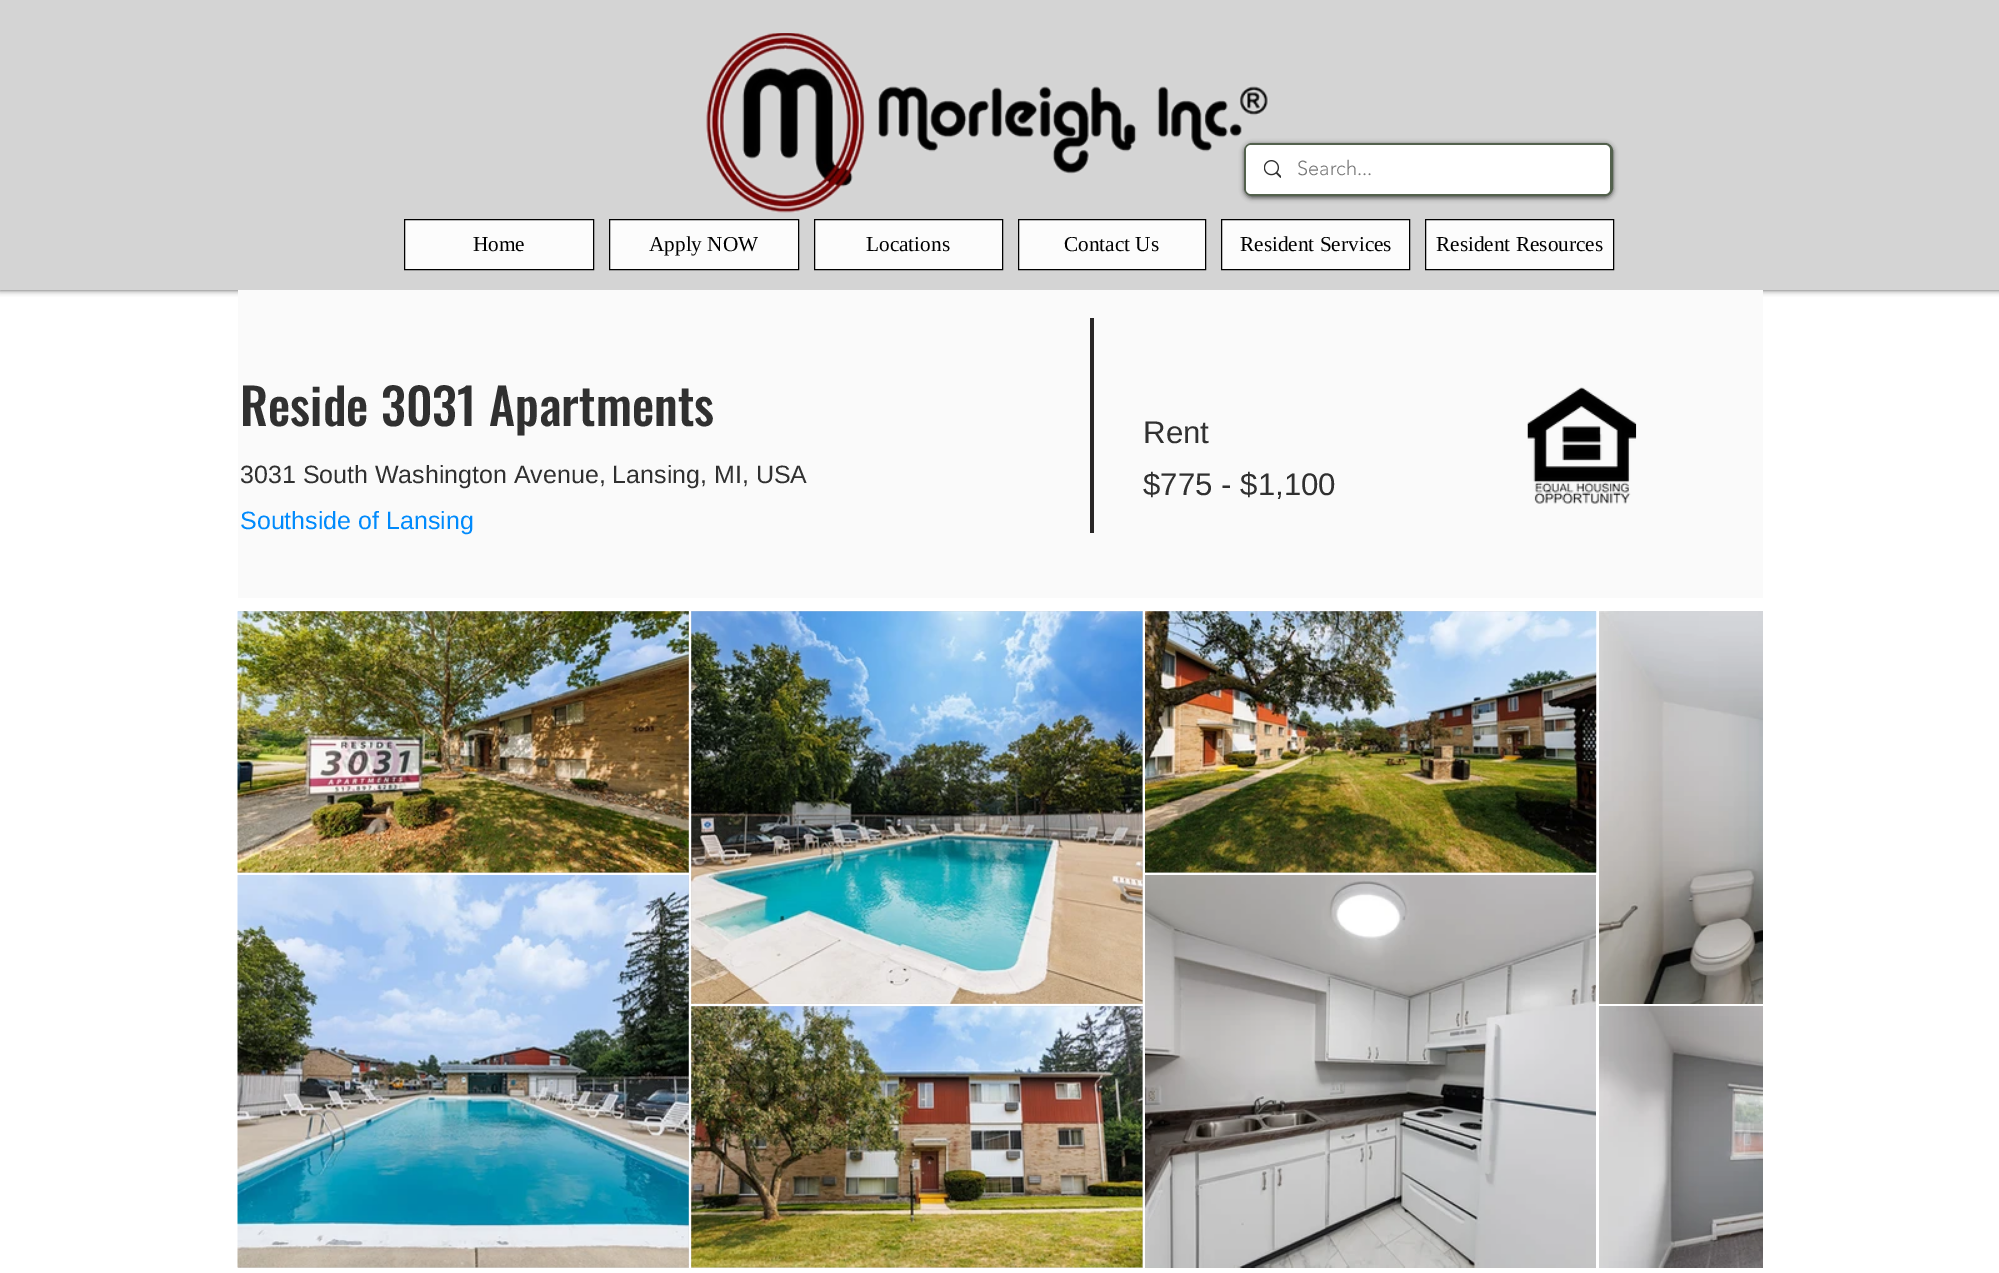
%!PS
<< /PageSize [1999 1273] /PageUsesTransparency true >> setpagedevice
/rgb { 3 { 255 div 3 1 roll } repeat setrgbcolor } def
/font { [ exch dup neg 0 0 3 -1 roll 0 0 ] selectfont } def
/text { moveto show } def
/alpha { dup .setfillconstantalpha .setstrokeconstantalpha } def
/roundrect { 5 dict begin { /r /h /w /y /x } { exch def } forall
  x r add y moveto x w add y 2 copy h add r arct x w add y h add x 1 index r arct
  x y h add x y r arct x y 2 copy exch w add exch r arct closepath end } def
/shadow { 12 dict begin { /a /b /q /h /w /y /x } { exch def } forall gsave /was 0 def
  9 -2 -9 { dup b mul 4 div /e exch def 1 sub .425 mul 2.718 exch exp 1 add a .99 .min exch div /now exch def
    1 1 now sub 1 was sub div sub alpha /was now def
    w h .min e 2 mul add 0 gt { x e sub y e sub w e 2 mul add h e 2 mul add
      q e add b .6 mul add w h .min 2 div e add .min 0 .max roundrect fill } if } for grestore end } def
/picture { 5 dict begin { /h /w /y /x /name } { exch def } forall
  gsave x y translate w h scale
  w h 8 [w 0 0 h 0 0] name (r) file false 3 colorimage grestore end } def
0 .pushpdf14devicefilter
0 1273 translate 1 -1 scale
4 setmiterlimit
255 255 255 rgb
0 0 1999 1273 rectfill
0 0 0 rgb
0 0 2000 290 0 3 0.7 shadow
212 212 212 rgb
0 0 1999 290 rectfill
(img_01.rgb) 706 33 563 180 picture
0 0 0 rgb
1244 144 369 54 8 2.5 0.6 shadow
83 97 77 rgb
3 setlinewidth
1245.5 144.5 366 50 6.5 roundrect stroke
255 255 255 rgb
1246 145 364 49 5 roundrect fill
(img_02.rgb) 1264 160 17 18 picture
252 252 252 rgb
404.5 219.5 moveto 189 0 rlineto 0 50 rlineto -189 0 rlineto closepath gsave fill grestore
0 0 0 rgb
1 setlinewidth
stroke
252 252 252 rgb
609.5 219.5 moveto 189 0 rlineto 0 50 rlineto -189 0 rlineto closepath gsave fill grestore
0 0 0 rgb
stroke
252 252 252 rgb
814.5 219.5 moveto 188 0 rlineto 0 50 rlineto -188 0 rlineto closepath gsave fill grestore
0 0 0 rgb
stroke
252 252 252 rgb
1018.5 219.5 moveto 187 0 rlineto 0 50 rlineto -187 0 rlineto closepath gsave fill grestore
0 0 0 rgb
stroke
252 252 252 rgb
1221.5 219.5 moveto 188 0 rlineto 0 50 rlineto -188 0 rlineto closepath gsave fill grestore
0 0 0 rgb
stroke
252 252 252 rgb
1425.5 219.5 moveto 188 0 rlineto 0 50 rlineto -188 0 rlineto closepath gsave fill grestore
0 0 0 rgb
stroke
250 250 250 rgb
238 290 1525 308 rectfill
40 38 38 rgb
1090 318 4 215 rectfill
(img_03.rgb) 1527 387 110 117 picture
212 212 212 rgb
238 611 451 262 rectfill
(img_04.rgb) 237 611 452 262 picture
238 875 451 393 rectfill
(img_05.rgb) 237 875 452 393 picture
691 611 452 393 rectfill
(img_06.rgb) 691 611 452 393 picture
691 1006 452 262 rectfill
(img_07.rgb) 691 1006 452 262 picture
1145 611 451 262 rectfill
(img_08.rgb) 1145 611 452 262 picture
(img_09.rgb) 1145 875 451 393 picture
(img_10.rgb) 1599 611 164 393 picture
(img_11.rgb) 1599 1006 164 262 picture
/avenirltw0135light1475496-Light 20 font
120 120 120 rgb
(Search...) 1297 175 text
/LiberationSerif-Regular 21.25 font
0 0 0 rgb
(Home) 473 251 text
(Apply NOW) 649 251 text
(Locations) 866 251 text
(Contact Us) 1064 251 text
(Resident Services) 1240 251 text
(Resident Resources) 1436 251 text
/Oswald-Medium 50 font
48 48 48 rgb
(Reside 3031 Apartments) 240 426 text
/LiberationSans-Regular 25 font
(3031 South Washington Avenue, Lansing, MI, USA) 240 483 text
0 138 252 rgb
(Southside of Lansing) 240 529 text
/LiberationSans-Regular 31.25 font
48 48 48 rgb
(Rent) 1143 443 text
($775 - $1,100) 1143 495 text
.poppdf14devicefilter showpage
